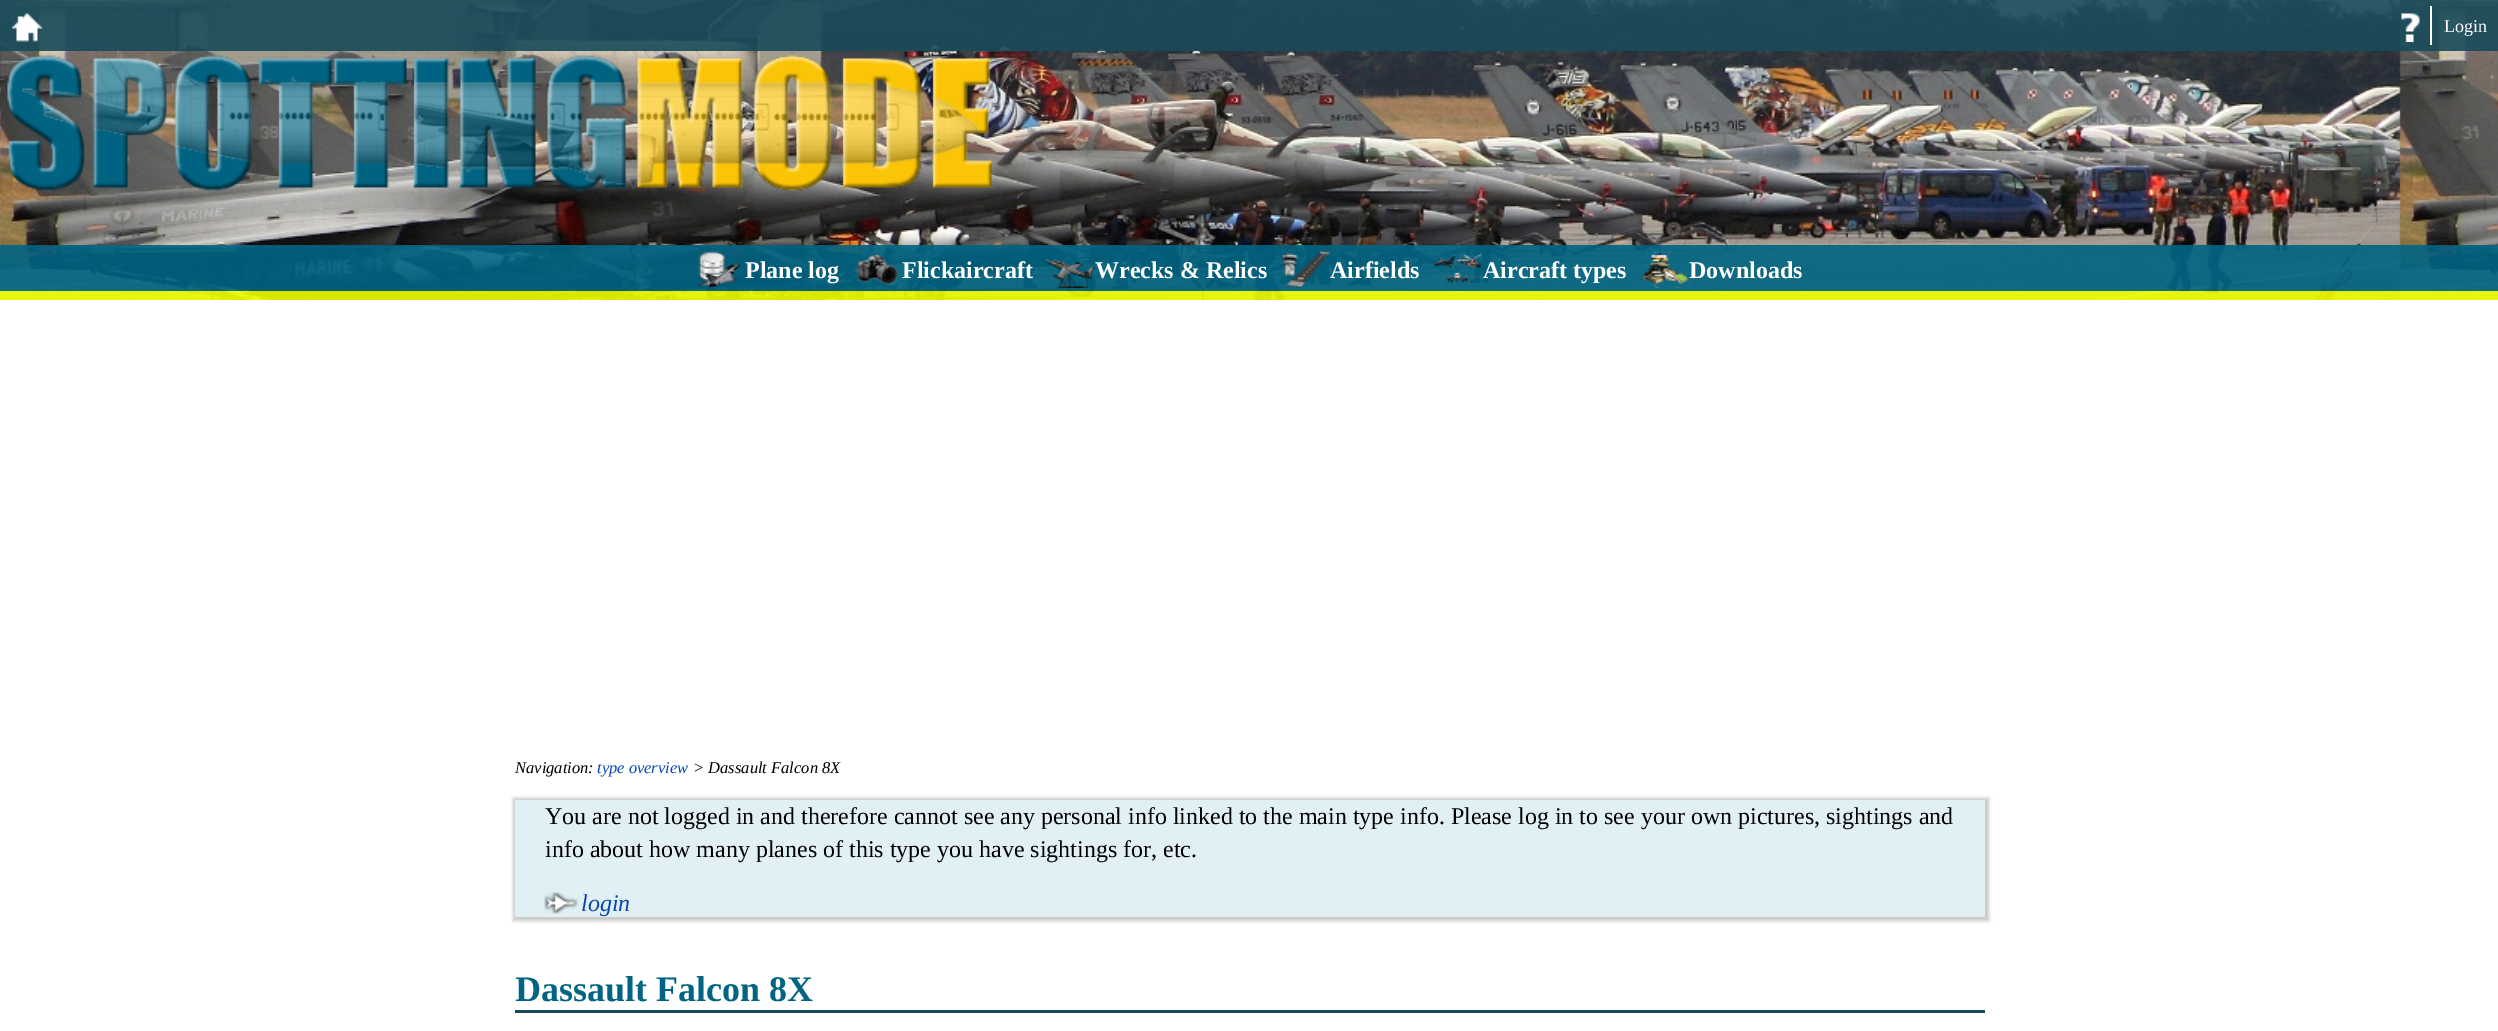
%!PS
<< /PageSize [2498 1031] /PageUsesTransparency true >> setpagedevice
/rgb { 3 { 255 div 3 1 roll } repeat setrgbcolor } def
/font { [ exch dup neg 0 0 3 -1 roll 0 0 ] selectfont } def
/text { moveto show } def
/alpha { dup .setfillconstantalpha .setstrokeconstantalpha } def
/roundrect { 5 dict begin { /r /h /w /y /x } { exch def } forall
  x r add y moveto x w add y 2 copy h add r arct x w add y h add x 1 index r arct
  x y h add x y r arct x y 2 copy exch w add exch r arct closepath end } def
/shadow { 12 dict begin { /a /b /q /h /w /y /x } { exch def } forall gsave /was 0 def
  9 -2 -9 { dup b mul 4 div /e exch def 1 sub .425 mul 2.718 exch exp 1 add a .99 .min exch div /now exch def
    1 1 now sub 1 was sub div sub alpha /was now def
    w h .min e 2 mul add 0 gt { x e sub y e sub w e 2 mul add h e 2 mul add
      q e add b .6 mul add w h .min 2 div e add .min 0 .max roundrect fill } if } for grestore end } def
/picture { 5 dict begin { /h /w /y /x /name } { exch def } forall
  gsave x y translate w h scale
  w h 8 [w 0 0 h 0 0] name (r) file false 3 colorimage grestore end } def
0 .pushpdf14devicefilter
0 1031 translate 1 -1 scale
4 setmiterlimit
255 255 255 rgb
0 0 2498 1031 rectfill
(img_01.rgb) 0 0 2498 300 picture
0.9 alpha
238 255 0 rgb
0 291 2498 9 rectfill
24 74 89 rgb
0 0 2498 51 rectfill
1 alpha
(img_02.rgb) 12 12 30 30 picture
(img_03.rgb) 2401 13 19 29 picture
255 255 255 rgb
2430 6 2 39 rectfill
(img_04.rgb) 7 55 986 136 picture
0.9 alpha
0 100 130 rgb
0 245 2498 46 rectfill
1 alpha
(img_05.rgb) 697 251 45 37 picture
(img_06.rgb) 856 253 43 33 picture
(img_07.rgb) 1045 259 50 29 picture
(img_08.rgb) 1281 250 50 38 picture
(img_09.rgb) 1432 253 50 31 picture
(img_10.rgb) 1640 250 49 38 picture
gsave
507 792 moveto 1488 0 rlineto 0 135 rlineto -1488 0 rlineto closepath 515 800 moveto 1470 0 rlineto 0 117 rlineto -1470 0 rlineto closepath eoclip newpath
0 0 0 rgb
513 798 1476 123 0 1.5 0.2 shadow
grestore
0.2 alpha
103 182 207 rgb
515 800 1470 117 rectfill
1 alpha
(img_11.rgb) 544 892 34 22 picture
24 74 89 rgb
515 1010 1470 3 rectfill
/LiberationSerif-Regular 18 font
255 255 255 rgb
(Login) 2444 32 text
/LiberationSerif-Bold 24 font
(Plane log) 745 278 text
(Flickaircraft) 902 278 text
(Wrecks & Relics) 1095 278 text
(Airfields) 1330 278 text
(Aircraft types) 1483 278 text
(Downloads) 1689 278 text
/LiberationSerif-Italic 16.5 font
0 0 0 rgb
(Navigation:) 515 773 text
6 69 173 rgb
(type overview) 597 773 text
0 0 0 rgb
(> Dassault Falcon 8X) 693 773 text
/LiberationSerif-Regular 24 font
(You are not logged in and therefore cannot see any personal info linked to the main type info. Please log in to see your own pictures, sightings and) 545 824 text
(info about how many planes of this type you have sightings for, etc.) 545 857 text
/LiberationSerif-Italic 24 font
6 69 173 rgb
(login) 581 911 text
/LiberationSerif-Bold 36 font
0 100 130 rgb
(Dassault Falcon 8X) 515 1001 text
.poppdf14devicefilter showpage
